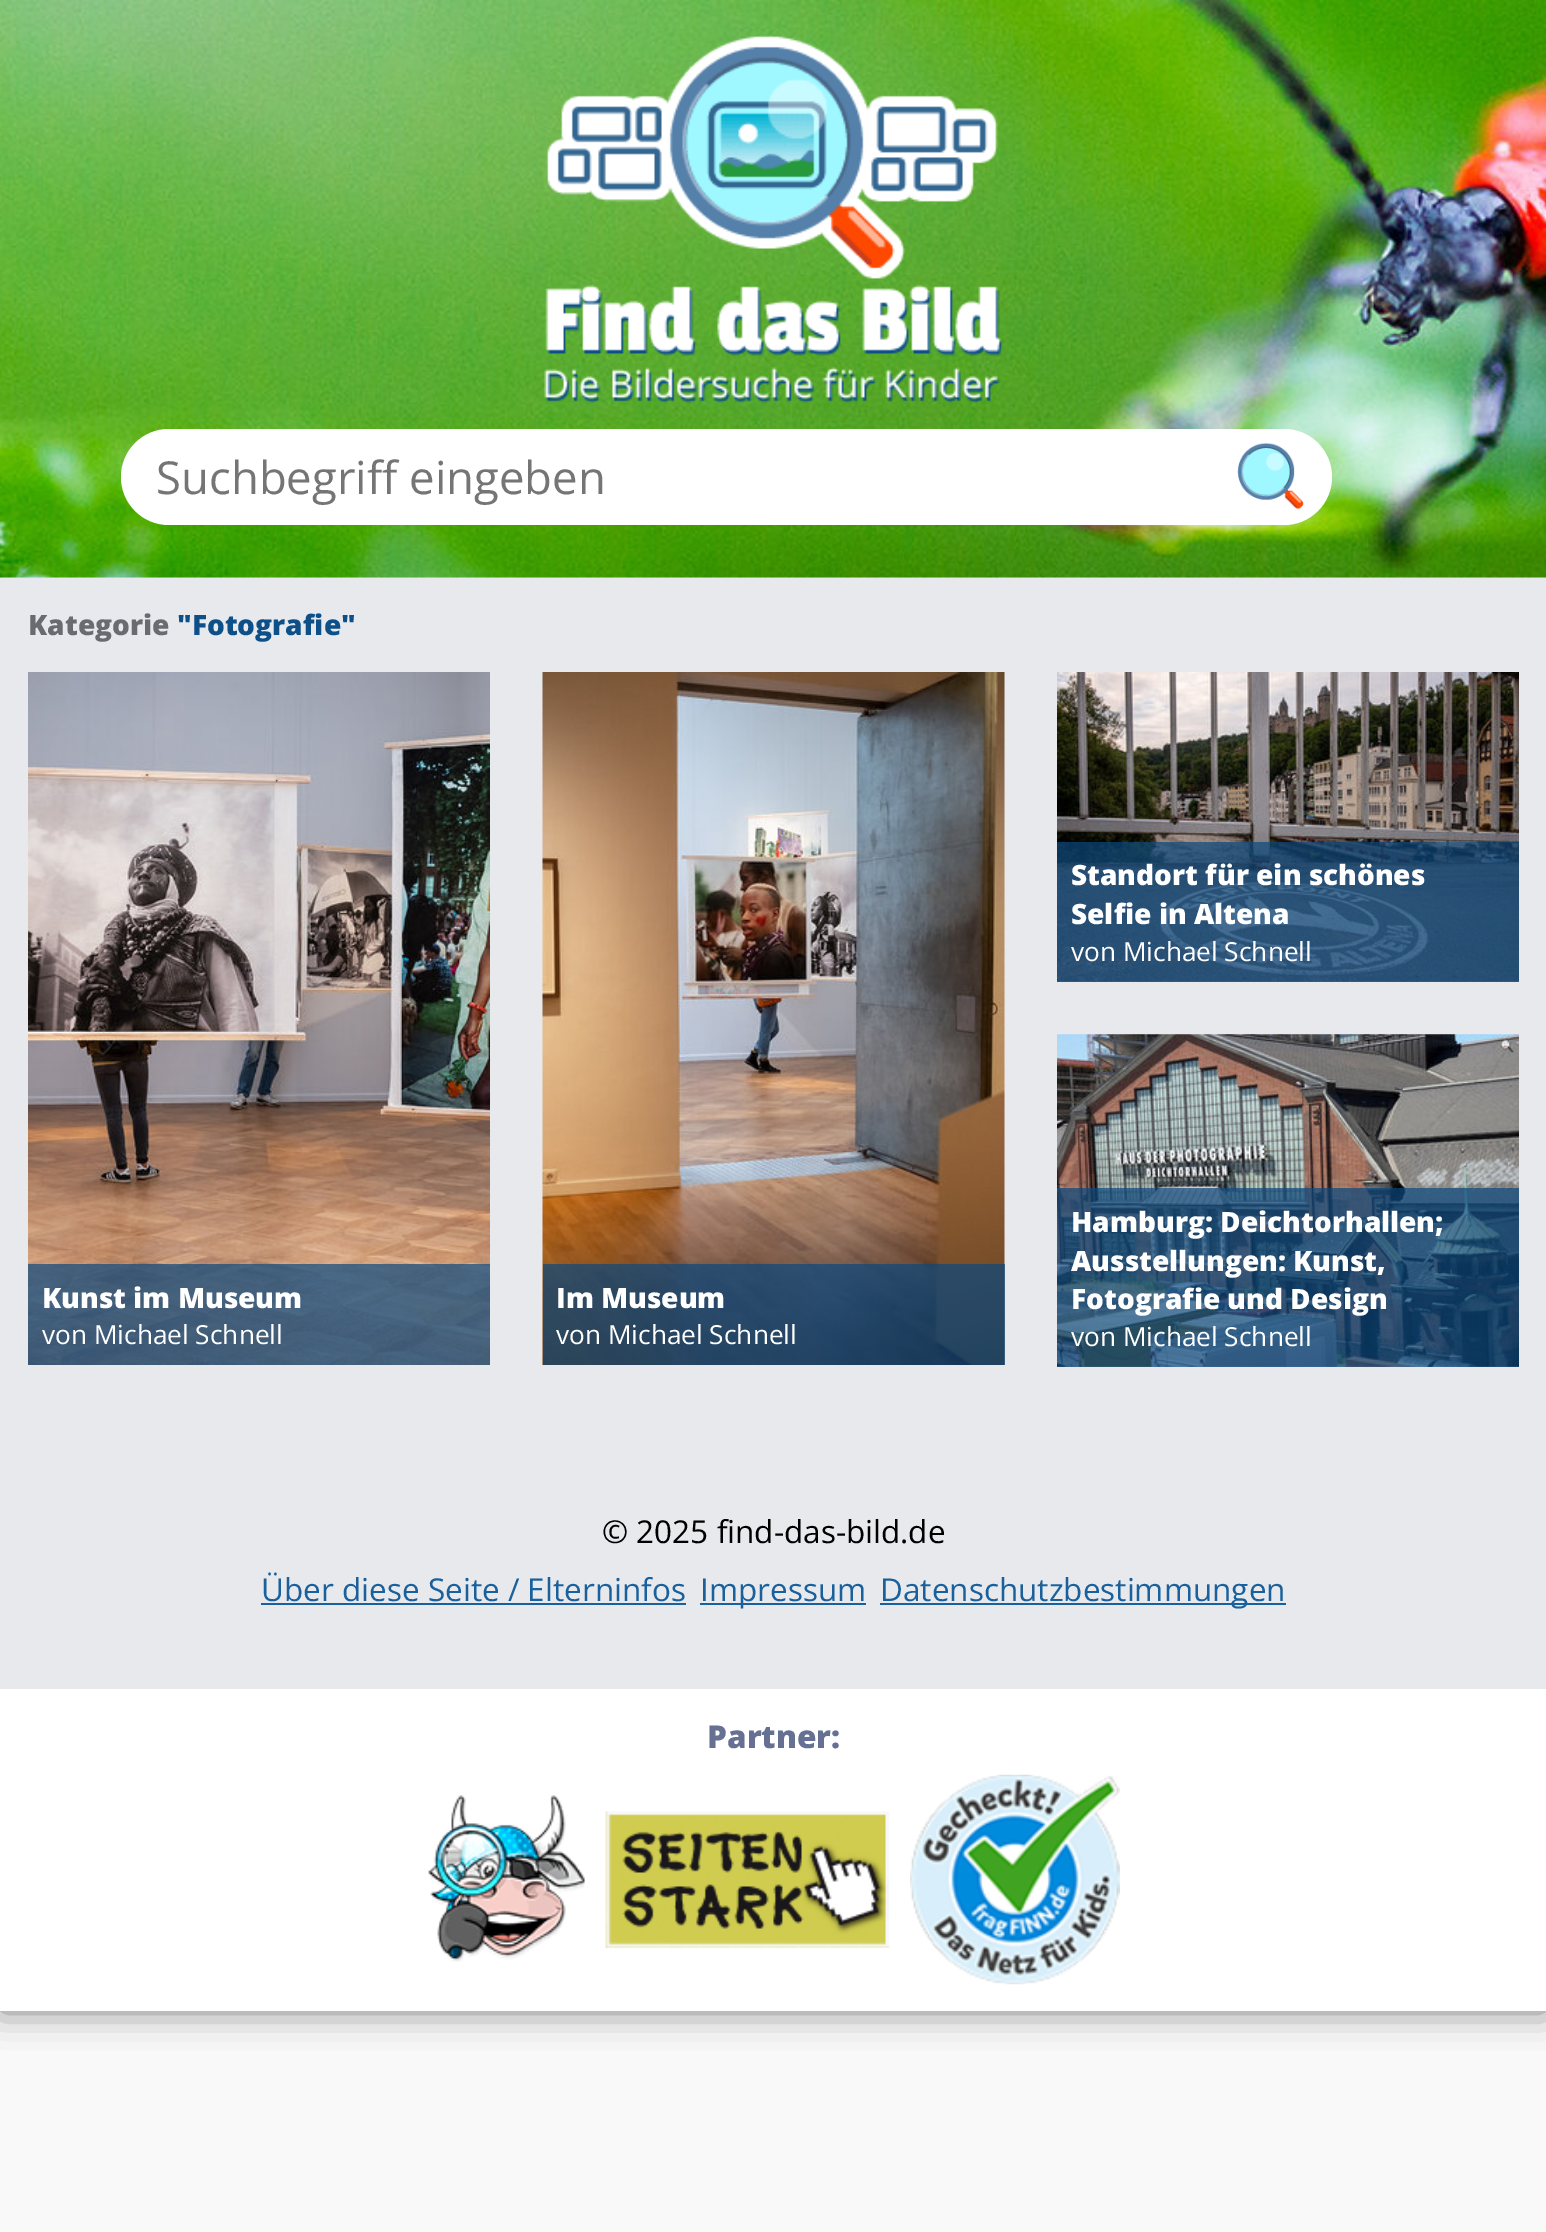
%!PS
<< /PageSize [1546 2232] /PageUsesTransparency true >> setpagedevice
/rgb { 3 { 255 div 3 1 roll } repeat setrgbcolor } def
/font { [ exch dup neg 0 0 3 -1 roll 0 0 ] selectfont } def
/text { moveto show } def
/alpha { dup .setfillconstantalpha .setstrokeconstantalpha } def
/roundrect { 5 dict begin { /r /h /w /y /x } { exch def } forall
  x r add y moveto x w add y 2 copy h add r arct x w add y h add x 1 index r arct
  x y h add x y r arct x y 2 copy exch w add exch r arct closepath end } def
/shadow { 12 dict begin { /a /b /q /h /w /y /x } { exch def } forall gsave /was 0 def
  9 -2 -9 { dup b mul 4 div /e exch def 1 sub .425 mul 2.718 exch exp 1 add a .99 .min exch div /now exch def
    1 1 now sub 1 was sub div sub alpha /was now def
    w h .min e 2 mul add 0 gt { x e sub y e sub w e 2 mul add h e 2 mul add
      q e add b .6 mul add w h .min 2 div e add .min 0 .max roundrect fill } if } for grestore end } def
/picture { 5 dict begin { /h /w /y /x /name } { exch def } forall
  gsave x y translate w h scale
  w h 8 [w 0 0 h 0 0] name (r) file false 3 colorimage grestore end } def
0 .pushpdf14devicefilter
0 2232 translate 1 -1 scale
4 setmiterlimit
249 249 249 rgb
0 0 1546 2232 rectfill
0 0 0 rgb
0 0 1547 2011 0 17.5 0.5 shadow
231 233 237 rgb
0 577 1546 1112 rectfill
(img_01.rgb) 0 0 1546 578 picture
(img_02.rgb) 544 35 459 368 picture
255 255 255 rgb
121 429 1211 96 48 roundrect fill
(img_03.rgb) 1237 442 67 68 picture
(img_04.rgb) 1057 672 462 310 picture
0.7 alpha
11 72 126 rgb
1057 842 462 140 rectfill
1 alpha
(img_05.rgb) 28 672 462 693 picture
0.7 alpha
28 1264 462 101 rectfill
1 alpha
(img_06.rgb) 542 672 463 693 picture
0.7 alpha
543 1264 462 101 rectfill
1 alpha
(img_07.rgb) 1057 1034 462 333 picture
0.7 alpha
1057 1188 462 179 rectfill
1 alpha
26 96 156 rgb
261 1603 425 2 rectfill
700 1603 166 2 rectfill
880 1603 406 2 rectfill
255 255 255 rgb
0 1689 1546 322 rectfill
(img_08.rgb) 428 1795 157 167 picture
(img_09.rgb) 605 1811 285 138 picture
(img_10.rgb) 910 1774 210 211 picture
/OpenSans-Regular 45.5 font
117 117 117 rgb
(Suchbegriff eingeben) 156 494 text
/OpenSans-ExtraBold 28 font
105 107 113 rgb
(Kategorie) 28 635 text
13 79 136 rgb
("Fotografie") 177 635 text
255 255 255 rgb
(Standort für ein schönes) 1071 885 text
(Selfie in Altena) 1071 924 text
/OpenSans-Regular 26.25 font
(von Michael Schnell) 1071 961 text
/OpenSans-ExtraBold 28 font
(Kunst im Museum) 42 1308 text
/OpenSans-Regular 26.25 font
(von Michael Schnell) 42 1344 text
/OpenSans-ExtraBold 28 font
(Im Museum) 556 1308 text
/OpenSans-Regular 26.25 font
(von Michael Schnell) 556 1344 text
/OpenSans-ExtraBold 28 font
(Hamburg: Deichtorhallen;) 1071 1232 text
(Ausstellungen: Kunst,) 1071 1271 text
(Fotografie und Design) 1071 1309 text
/OpenSans-Regular 26.25 font
(von Michael Schnell) 1071 1346 text
/OpenSans-Regular 31.5 font
0 0 0 rgb
(© 2025 find-das-bild.de) 602 1543 text
26 96 156 rgb
(Über diese Seite / Elterninfos) 261 1601 text
(Impressum) 700 1601 text
(Datenschutzbestimmungen) 880 1601 text
/OpenSans-ExtraBold 31.5 font
101 112 147 rgb
(Partner:) 707 1748 text
.poppdf14devicefilter showpage
